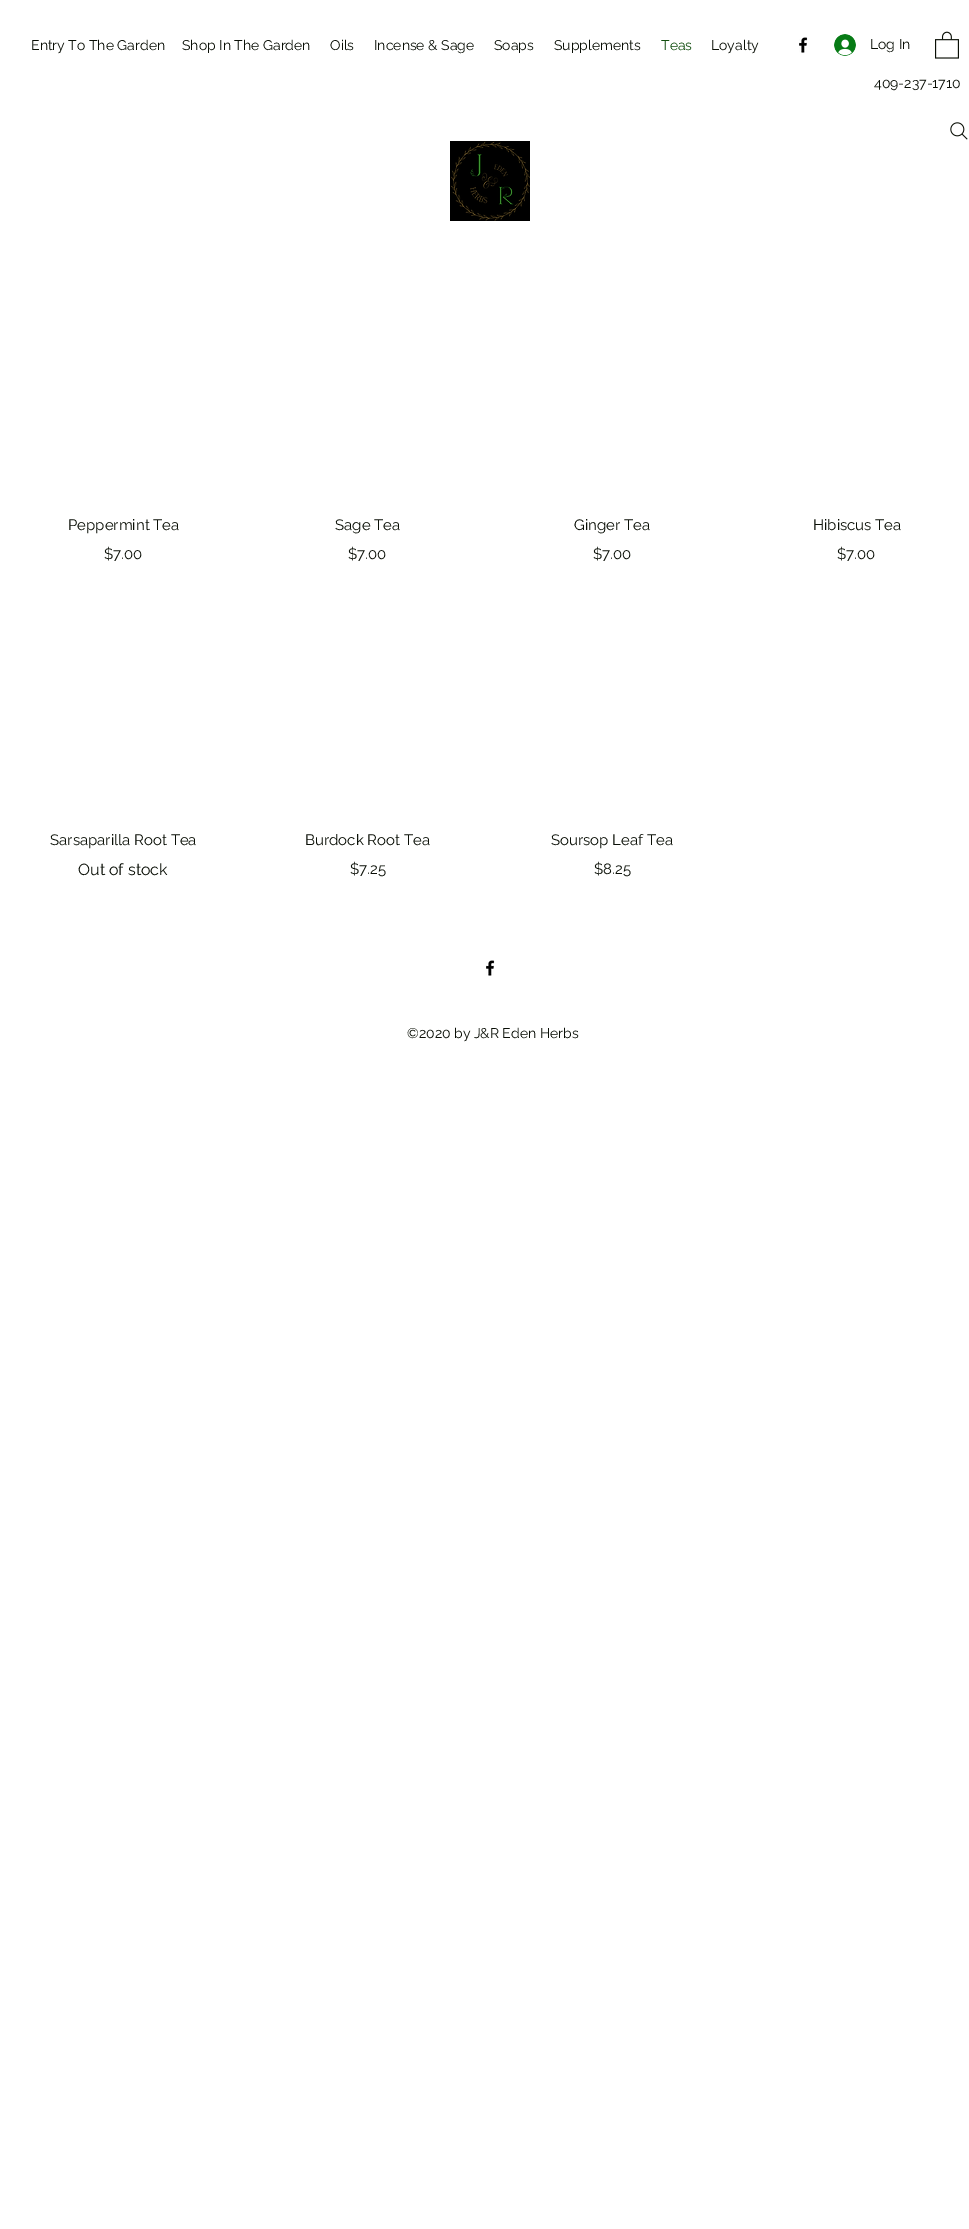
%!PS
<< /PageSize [969 2229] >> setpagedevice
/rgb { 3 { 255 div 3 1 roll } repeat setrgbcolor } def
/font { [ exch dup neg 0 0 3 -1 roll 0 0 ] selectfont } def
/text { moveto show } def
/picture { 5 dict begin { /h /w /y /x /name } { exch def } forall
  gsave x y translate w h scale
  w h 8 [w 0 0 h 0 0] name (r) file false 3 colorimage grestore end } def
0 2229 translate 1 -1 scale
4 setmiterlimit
255 255 255 rgb
0 0 969 2229 rectfill
(img_01.rgb) 799 37 9 16 picture
(img_02.rgb) 834 34 22 22 picture
(img_03.rgb) 935 31 24 28 picture
(img_04.rgb) 950 122 18 18 picture
(img_05.rgb) 450 141 80 80 picture
(img_01.rgb) 486 960 9 16 picture
/Raleway-Regular 14 font
10 15 6 rgb
(Entry To The Garden) 31 50 text
(Shop In The Garden) 182 50 text
(Oils) 330 50 text
(Incense & Sage) 374 50 text
(Soaps) 494 50 text
(Supplements) 554 50 text
17 77 14 rgb
(Teas) 661 50 text
10 15 6 rgb
(Loyalty) 711 50 text
(Log In) 870 49 text
(409-237-1710) 874 88 text
/Raleway-Regular 15 font
(Peppermint Tea) 68 530 text
($7.00) 104 559 text
(Sage Tea) 335 530 text
($7.00) 348 559 text
(Ginger Tea) 574 530 text
($7.00) 593 559 text
(Hibiscus Tea) 813 530 text
($7.00) 837 559 text
(Sarsaparilla Root Tea) 50 845 text
/Raleway-Regular 16 font
(Out of stock) 78 875 text
/Raleway-Regular 15 font
(Burdock Root Tea) 305 845 text
($7.25) 350 874 text
(Soursop Leaf Tea) 551 845 text
($8.25) 594 874 text
/Raleway-Regular 14 font
(©2020 by J&R Eden Herbs) 407 1038 text
showpage
